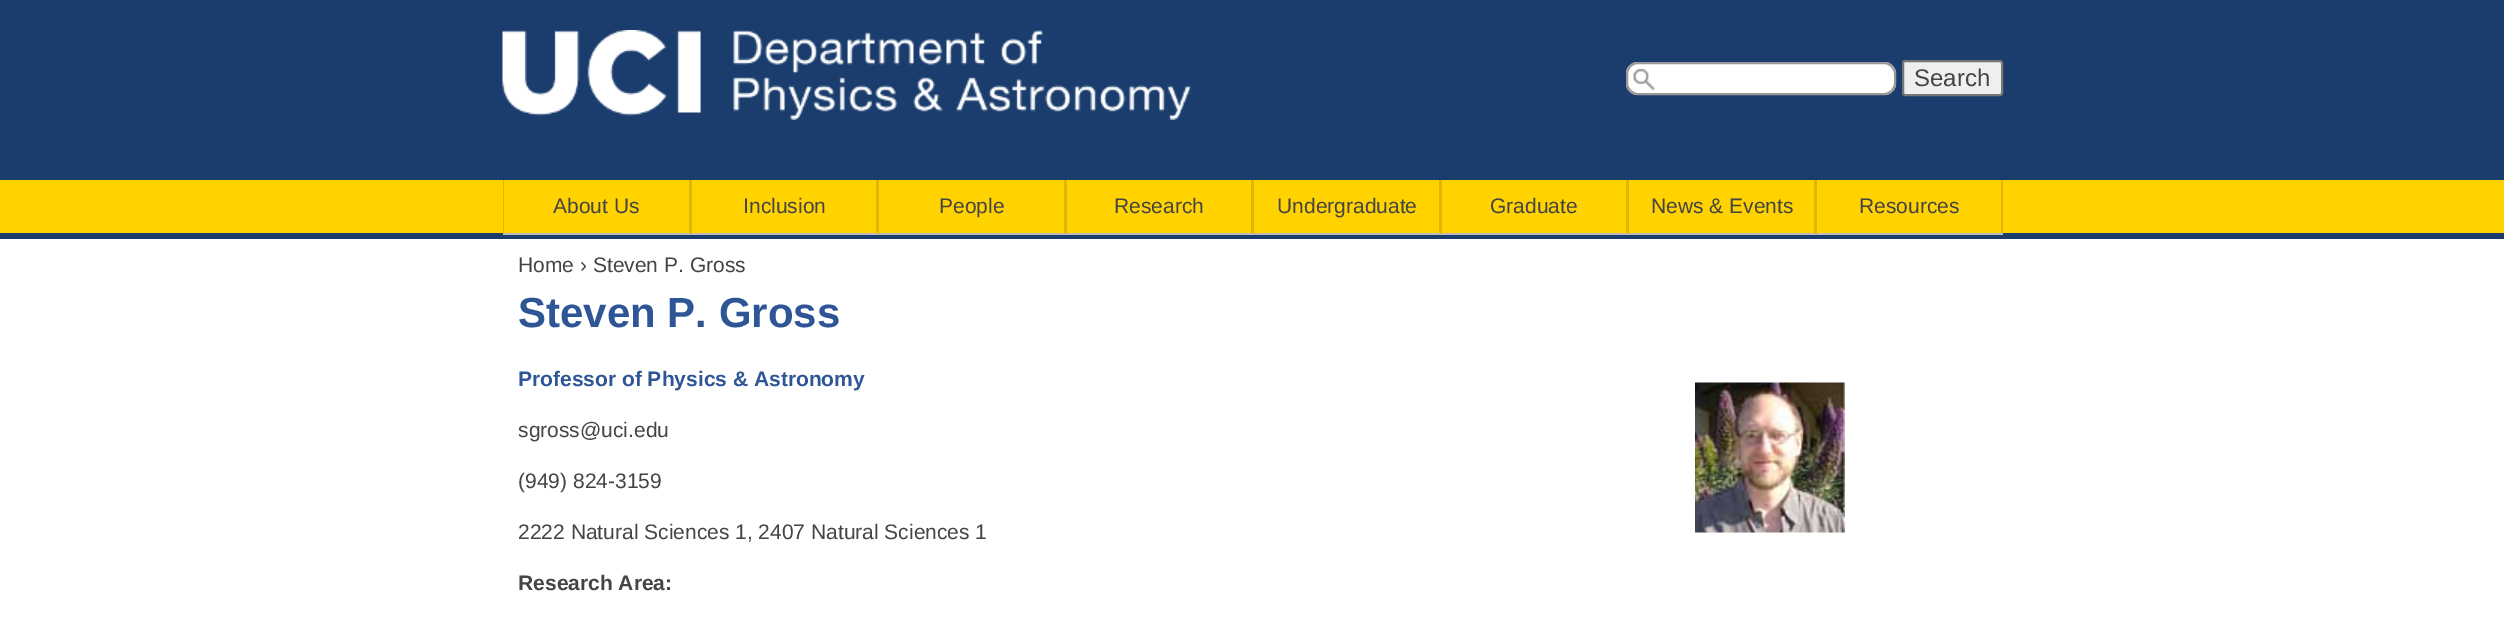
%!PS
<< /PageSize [2504 636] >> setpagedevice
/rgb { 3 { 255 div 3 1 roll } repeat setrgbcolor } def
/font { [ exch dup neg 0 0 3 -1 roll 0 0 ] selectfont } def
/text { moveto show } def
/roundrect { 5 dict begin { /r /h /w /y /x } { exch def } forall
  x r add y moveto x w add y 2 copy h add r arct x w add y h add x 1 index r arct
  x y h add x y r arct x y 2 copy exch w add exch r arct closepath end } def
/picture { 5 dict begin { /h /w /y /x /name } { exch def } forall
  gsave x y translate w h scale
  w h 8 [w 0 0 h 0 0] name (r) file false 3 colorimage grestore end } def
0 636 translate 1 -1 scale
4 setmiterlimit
255 255 255 rgb
0 0 2504 636 rectfill
27 61 109 rgb
0 0 2504 180 rectfill
(img_01.rgb) 502 30 690 90 picture
255 255 255 rgb
1626 62 270 33 12 roundrect fill
(img_02.rgb) 1633 69 22 21 picture
153 153 153 rgb
2 setlinewidth
1627 63 268 31 11 roundrect stroke
239 239 239 rgb
1903 61 99 34 2 roundrect gsave fill grestore
118 118 118 rgb
stroke
255 210 0 rgb
0 180 2504 53 rectfill
27 61 109 rgb
0 233 2504 6 rectfill
223 182 0 rgb
689 180 1 54 rectfill
187 187 187 rgb
503 233 187 2 rectfill
223 182 0 rgb
503 180 2 54 rectfill
255 210 0 rgb
504 180 1 53 rectfill
223 182 0 rgb
876 180 2 54 rectfill
187 187 187 rgb
690 233 188 2 rectfill
223 182 0 rgb
690 180 2 54 rectfill
1064 180 1 54 rectfill
187 187 187 rgb
878 233 187 2 rectfill
223 182 0 rgb
878 180 2 54 rectfill
255 210 0 rgb
879 180 1 53 rectfill
223 182 0 rgb
1251 180 2 54 rectfill
187 187 187 rgb
1065 233 188 2 rectfill
223 182 0 rgb
1065 180 2 54 rectfill
1439 180 1 54 rectfill
187 187 187 rgb
1253 233 187 2 rectfill
223 182 0 rgb
1253 180 2 54 rectfill
255 210 0 rgb
1254 180 1 53 rectfill
223 182 0 rgb
1626 180 2 54 rectfill
187 187 187 rgb
1440 233 188 2 rectfill
223 182 0 rgb
1440 180 2 54 rectfill
1814 180 1 54 rectfill
187 187 187 rgb
1628 233 187 2 rectfill
223 182 0 rgb
1628 180 2 54 rectfill
255 210 0 rgb
1629 180 1 53 rectfill
223 182 0 rgb
2001 180 2 54 rectfill
187 187 187 rgb
1815 233 188 2 rectfill
223 182 0 rgb
1815 180 2 54 rectfill
(img_03.rgb) 1695 382 150 151 picture
/LiberationSans-Regular 24 font
68 68 68 rgb
(Search) 1914 86 text
/LiberationSans-Regular 21 font
(About Us) 553 213 text
(Inclusion) 743 213 text
(People) 939 213 text
(Research) 1114 213 text
(Undergraduate) 1277 213 text
(Graduate) 1490 213 text
(News & Events) 1651 213 text
(Resources) 1859 213 text
(Home › Steven P. Gross) 518 272 text
/LiberationSans-Bold 42 font
46 86 151 rgb
(Steven P. Gross) 518 327 text
/LiberationSans-Bold 21 font
(Professor of Physics & Astronomy) 518 386 text
/LiberationSans-Regular 21 font
68 68 68 rgb
(sgross@uci.edu) 518 437 text
(\(949\) 824-3159) 518 488 text
(2222 Natural Sciences 1, 2407 Natural Sciences 1) 518 539 text
/LiberationSans-Bold 21 font
(Research Area:) 518 590 text
showpage
